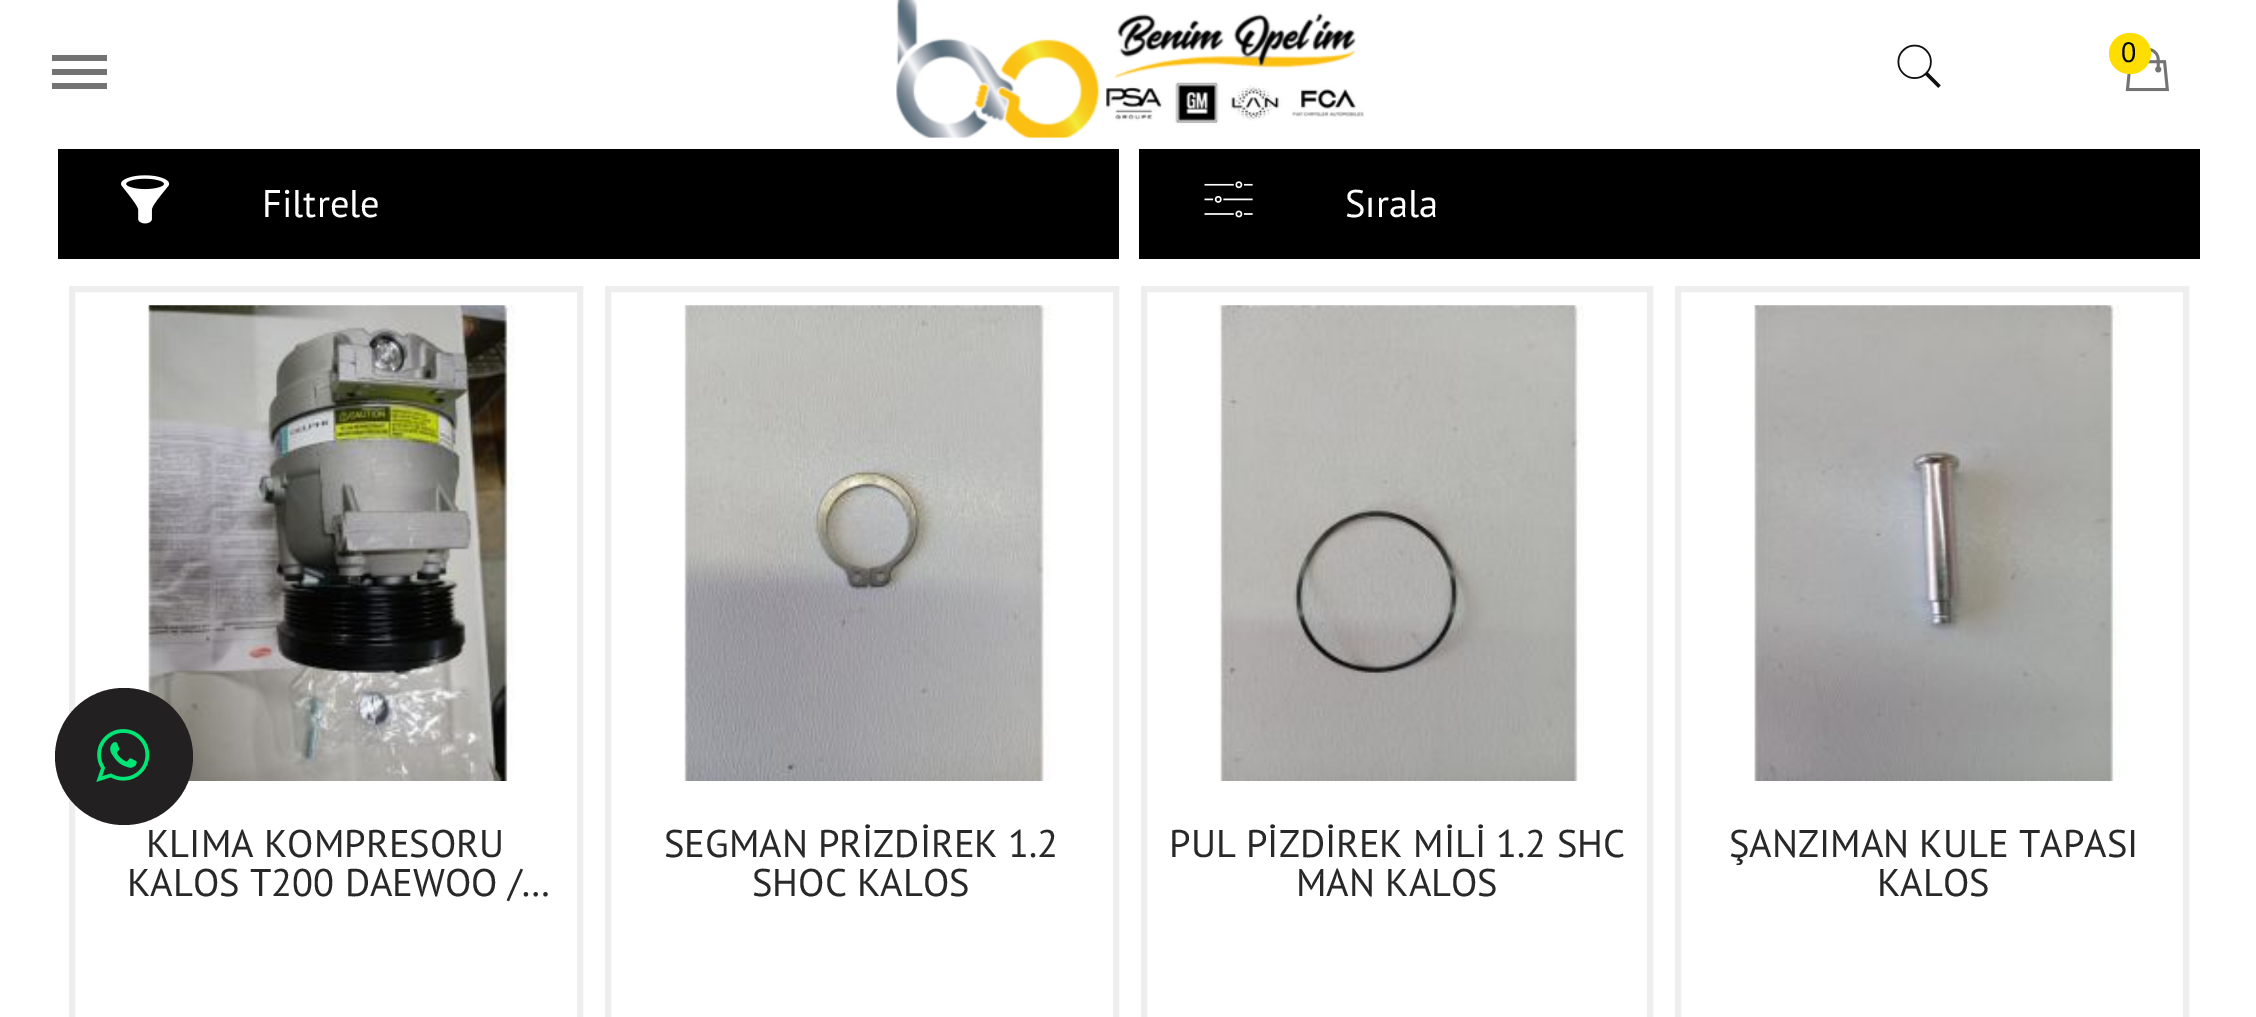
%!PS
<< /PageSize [2256 1017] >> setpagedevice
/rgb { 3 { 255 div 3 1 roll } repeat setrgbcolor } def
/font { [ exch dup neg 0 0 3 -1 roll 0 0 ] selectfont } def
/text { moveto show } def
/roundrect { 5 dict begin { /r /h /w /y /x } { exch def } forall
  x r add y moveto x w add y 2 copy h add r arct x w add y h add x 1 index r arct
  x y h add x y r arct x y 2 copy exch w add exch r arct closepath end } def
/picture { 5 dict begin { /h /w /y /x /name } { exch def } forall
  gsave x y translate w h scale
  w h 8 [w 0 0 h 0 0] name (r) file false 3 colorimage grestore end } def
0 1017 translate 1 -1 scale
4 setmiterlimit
255 255 255 rgb
0 0 2256 1017 rectfill
(img_01.rgb) 896 0 468 138 picture
(img_02.rgb) 1897 44 44 44 picture
(img_03.rgb) 2125 47 44 45 picture
254 222 0 rgb
2109 33 42 41 20.5 roundrect fill
115 115 115 rgb
52 55 55 6 rectfill
52 69 55 6 rectfill
52 83 55 6 rectfill
238 238 238 rgb
6 setlinewidth
72 289 508 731 rectstroke
(img_07.rgb) 147 305 368 476 picture
34 32 32 rgb
55 688 138 137 68.5 roundrect fill
(img_04.rgb) 96 729 54 53 picture
0 0 0 rgb
58 149 1061 110 rectfill
(img_05.rgb) 121 175 49 49 picture
1139 149 1061 110 rectfill
(img_06.rgb) 1204 181 49 37 picture
238 238 238 rgb
608 289 508 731 rectstroke
(img_08.rgb) 684 305 367 476 picture
1144 289 506 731 rectstroke
(img_09.rgb) 1218 305 366 476 picture
1678 289 508 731 rectstroke
(img_10.rgb) 1754 305 367 476 picture
/PTSans-Regular 28 font
0 0 0 rgb
(0) 2121 62 text
/PTSans-Regular 38.5 font
255 255 255 rgb
(Filtrele) 262 217 text
(Sırala) 1345 217 text
40 40 40 rgb
(KLIMA KOMPRESORU) 146 857 text
(KALOS T200 DAEWOO /…) 127 896 text
(SEGMAN PRİZDİREK 1.2) 664 857 text
(SHOC KALOS) 752 896 text
(PUL PİZDİREK MİLİ 1.2 SHC) 1169 857 text
(MAN KALOS) 1296 896 text
(ŞANZIMAN KULE TAPASI) 1729 857 text
(KALOS) 1877 896 text
showpage
